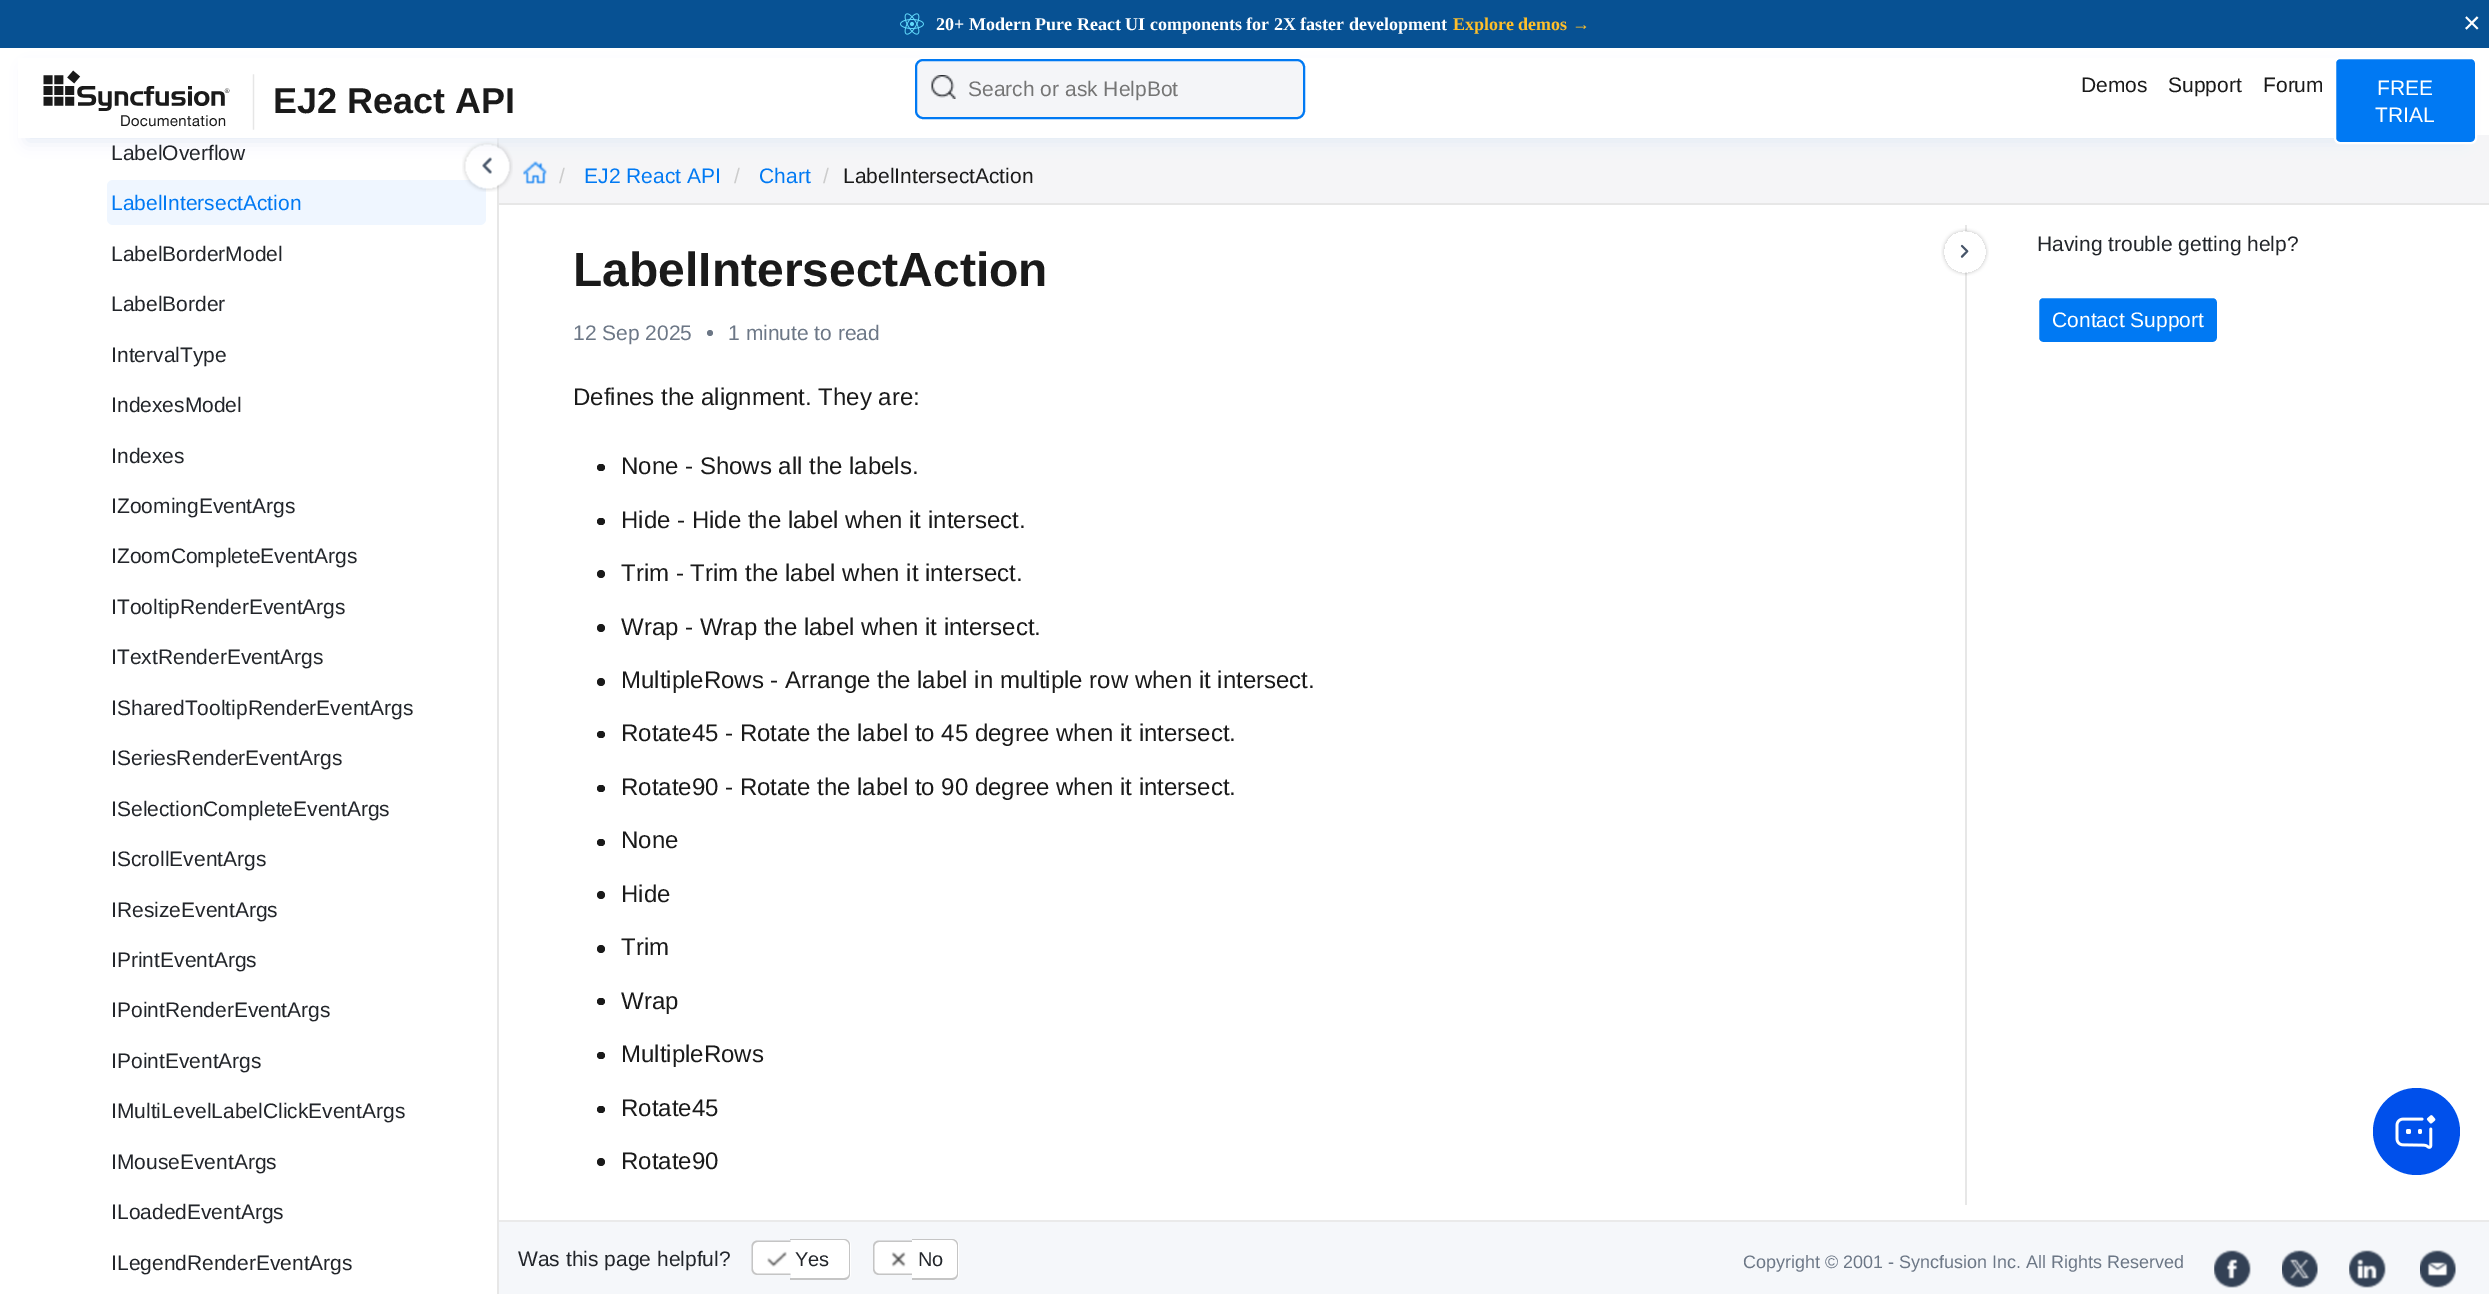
%!PS
<< /PageSize [2489 1294] /PageUsesTransparency true >> setpagedevice
/rgb { 3 { 255 div 3 1 roll } repeat setrgbcolor } def
/font { [ exch dup neg 0 0 3 -1 roll 0 0 ] selectfont } def
/text { moveto show } def
/alpha { dup .setfillconstantalpha .setstrokeconstantalpha } def
/circle { newpath 0 360 arc closepath } def
/roundrect { 5 dict begin { /r /h /w /y /x } { exch def } forall
  x r add y moveto x w add y 2 copy h add r arct x w add y h add x 1 index r arct
  x y h add x y r arct x y 2 copy exch w add exch r arct closepath end } def
/shadow { 12 dict begin { /a /b /q /h /w /y /x } { exch def } forall gsave /was 0 def
  9 -2 -9 { dup b mul 4 div /e exch def 1 sub .425 mul 2.718 exch exp 1 add a .99 .min exch div /now exch def
    1 1 now sub 1 was sub div sub alpha /was now def
    w h .min e 2 mul add 0 gt { x e sub y e sub w e 2 mul add h e 2 mul add
      q e add b .6 mul add w h .min 2 div e add .min 0 .max roundrect fill } if } for grestore end } def
/picture { 5 dict begin { /h /w /y /x /name } { exch def } forall
  gsave x y translate w h scale
  w h 8 [w 0 0 h 0 0] name (r) file false 3 colorimage grestore end } def
0 .pushpdf14devicefilter
0 1294 translate 1 -1 scale
4 setmiterlimit
255 255 255 rgb
0 0 2489 1294 rectfill
245 245 247 rgb
499 135 1990 68 rectfill
(img_04.rgb) 523 161 24 23 picture
231 231 231 rgb
497 138 2 1156 rectfill
239 246 255 rgb
107 180 379 45 6 roundrect fill
(img_05.rgb) 462 141 51 51 picture
226 234 245 rgb
27 69 2436 72 0 8 1 shadow
7 81 147 rgb
0 0 2489 48 rectfill
(img_01.rgb) 900 13 24 22 picture
255 255 255 rgb
18 58 2454 80 rectfill
(img_02.rgb) 43 70 212 60 picture
244 245 248 rgb
915 59 390 60 8 roundrect fill
(img_03.rgb) 931 75 25 24 picture
0 121 243 rgb
2 setlinewidth
916 60 388 58 7 roundrect stroke
2335 58 141 85 5 roundrect gsave fill grestore
255 255 255 rgb
stroke
231 231 231 rgb
499 203 1990 2 rectfill
1965 225 2 980 rectfill
108 119 134 rgb
710 333 3 circle fill
26 26 26 rgb
597 464 8 7 3.5 roundrect fill
597 518 8 7 3.5 roundrect fill
601 574 4 circle fill
601 628 4 circle fill
601 682 4 circle fill
597 731 8 7 3.5 roundrect fill
597 785 8 7 3.5 roundrect fill
597 839 8 7 3.5 roundrect fill
601 895 4 circle fill
601 949 4 circle fill
597 998 8 7 3.5 roundrect fill
597 1052 8 7 3.5 roundrect fill
597 1106 8 7 3.5 roundrect fill
601 1162 4 circle fill
(img_06.rgb) 1941 228 48 48 picture
0 121 243 rgb
2038 297 180 46 5 roundrect gsave fill grestore
255 255 255 rgb
stroke
0 80 235 rgb
2416.5 1131.5 43.5 circle fill
(img_07.rgb) 2395 1115 41 34 picture
245 247 250 rgb
499 1222 1990 72 rectfill
234 234 234 rgb
499 1220 1990 2 rectfill
255 255 255 rgb
758 1241 moveto 33 0 rlineto 0 34 rlineto -33 0 rlineto -3.5 0 -6 -2.5 -6 -6 rcurveto 0 -22 rlineto 0 -3.5 2.5 -6 6 -6 rcurveto closepath fill
197 197 197 rgb
757.5 1240.5 moveto 33 0 rlineto 0 34.5 rlineto -33 0 rlineto -3.5 0 -6 -2.5 -6 -6 rcurveto 0 -22.5 rlineto 0 -3.5 2.5 -6 6 -6 rcurveto closepath 757.5 1242 moveto 33 0 rlineto 0 31.5 rlineto -33 0 rlineto -2.5 0 -4.5 -2 -4.5 -4.5 rcurveto 0 -22.5 rlineto 0 -2.5 2 -4.5 4.5 -4.5 rcurveto closepath eofill
255 255 255 rgb
791 1239 moveto 54 0 rlineto 3.5 0 6 2.5 6 6 rcurveto 0 29 rlineto 0 3.5 -2.5 6 -6 6 rcurveto -54 0 rlineto closepath fill
197 197 197 rgb
790 1239 moveto 54 0 rlineto 4 0 6 3 6 6 rcurveto 0 29 rlineto 0 3 -2 6 -6 6 rcurveto -54 0 rlineto closepath 790 1240 moveto 54 0 rlineto 3 0 5 3 5 5 rcurveto 0 29 rlineto 0 2 -2 4 -5 4 rcurveto -54 0 rlineto closepath eofill
(img_08.rgb) 767 1251 20 16 picture
255 255 255 rgb
879 1241 moveto 33 0 rlineto 0 34 rlineto -33 0 rlineto -3.5 0 -6 -2.5 -6 -6 rcurveto 0 -22 rlineto 0 -3.5 2.5 -6 6 -6 rcurveto closepath fill
197 197 197 rgb
879 1240.5 moveto 33 0 rlineto 0 34.5 rlineto -33 0 rlineto -3.5 0 -6 -2.5 -6 -6 rcurveto 0 -22.5 rlineto 0 -3.5 2.5 -6 6 -6 rcurveto closepath 879 1242 moveto 33 0 rlineto 0 31.5 rlineto -33 0 rlineto -2.5 0 -4.5 -2 -4.5 -4.5 rcurveto 0 -22.5 rlineto 0 -2.5 2 -4.5 4.5 -4.5 rcurveto closepath eofill
255 255 255 rgb
912 1239 moveto 41 0 rlineto 3.5 0 6 2.5 6 6 rcurveto 0 29 rlineto 0 3.5 -2.5 6 -6 6 rcurveto -41 0 rlineto closepath fill
197 197 197 rgb
912 1239 moveto 40 0 rlineto 4 0 6 3 6 6 rcurveto 0 29 rlineto 0 3 -2 6 -6 6 rcurveto -40 0 rlineto closepath 912 1240 moveto 40 0 rlineto 3 0 5 3 5 5 rcurveto 0 29 rlineto 0 2 -2 4 -5 4 rcurveto -40 0 rlineto closepath eofill
(img_09.rgb) 891 1252 15 15 picture
(img_10.rgb) 2214 1250 37 38 picture
(img_11.rgb) 2282 1250 36 38 picture
(img_12.rgb) 2349 1250 37 38 picture
(img_13.rgb) 2420 1250 36 38 picture
/LiberationSerif-Bold 18 font
255 255 255 rgb
(20+ Modern Pure React UI components for 2X faster development) 936 30 text
255 191 42 rgb
(Explore demos →) 1453 30 text
/LiberationSans-Regular 30 font
255 255 255 rgb
(×) 2463 33 text
/LiberationSans-Bold 36 font
26 26 26 rgb
(EJ2 React API) 273 113 text
/LiberationSans-Regular 21 font
117 117 117 rgb
(Search or ask HelpBot) 968 96 text
26 26 26 rgb
(Demos) 2081 92 text
(Support) 2168 92 text
(Forum) 2263 92 text
255 255 255 rgb
(FREE) 2377 95 text
(TRIAL) 2375 122 text
204 204 204 rgb
(/) 559 183 text
0 121 243 rgb
(EJ2 React API) 584 183 text
204 204 204 rgb
(/) 734 183 text
0 121 243 rgb
(Chart) 759 183 text
204 204 204 rgb
(/) 823 183 text
26 26 26 rgb
(LabelIntersectAction) 843 183 text
34 37 42 rgb
(LabelOverflow) 111 160 text
0 121 243 rgb
(LabelIntersectAction) 111 210 text
34 37 42 rgb
(LabelBorderModel) 111 261 text
(LabelBorder) 111 311 text
(IntervalType) 111 362 text
(IndexesModel) 111 412 text
(Indexes) 111 463 text
(IZoomingEventArgs) 111 513 text
(IZoomCompleteEventArgs) 111 563 text
(ITooltipRenderEventArgs) 111 614 text
(ITextRenderEventArgs) 111 664 text
(ISharedTooltipRenderEventArgs) 111 715 text
(ISeriesRenderEventArgs) 111 765 text
(ISelectionCompleteEventArgs) 111 816 text
(IScrollEventArgs) 111 866 text
(IResizeEventArgs) 111 917 text
(IPrintEventArgs) 111 967 text
(IPointRenderEventArgs) 111 1017 text
(IPointEventArgs) 111 1068 text
(IMultiLevelLabelClickEventArgs) 111 1118 text
(IMouseEventArgs) 111 1169 text
(ILoadedEventArgs) 111 1219 text
(ILegendRenderEventArgs) 111 1270 text
/LiberationSans-Bold 48 font
26 26 26 rgb
(LabelIntersectAction) 573 286 text
/LiberationSans-Regular 21 font
108 119 134 rgb
(12 Sep 2025) 573 340 text
(1 minute to read) 728 340 text
/LiberationSans-Regular 24 font
26 26 26 rgb
(Defines the alignment. They are:) 573 405 text
(None - Shows all the labels.) 621 474 text
(Hide - Hide the label when it intersect.) 621 528 text
(Trim - Trim the label when it intersect.) 621 581 text
(Wrap - Wrap the label when it intersect.) 621 635 text
(MultipleRows - Arrange the label in multiple row when it intersect.) 621 688 text
(Rotate45 - Rotate the label to 45 degree when it intersect.) 621 741 text
(Rotate90 - Rotate the label to 90 degree when it intersect.) 621 795 text
(None) 621 848 text
(Hide) 621 902 text
(Trim) 621 955 text
(Wrap) 621 1009 text
(MultipleRows) 621 1062 text
(Rotate45) 621 1116 text
(Rotate90) 621 1169 text
/LiberationSans-Regular 21 font
34 37 42 rgb
(Having trouble getting help?) 2037 251 text
255 255 255 rgb
(Contact Support) 2052 327 text
34 37 42 rgb
(Was this page helpful?) 518 1266 text
/LiberationSans-Regular 20 font
(Yes) 795 1266 text
(No) 918 1266 text
/LiberationSans-Regular 18 font
108 119 134 rgb
(Copyright © 2001 - Syncfusion Inc. All Rights Reserved) 1743 1268 text
.poppdf14devicefilter showpage
